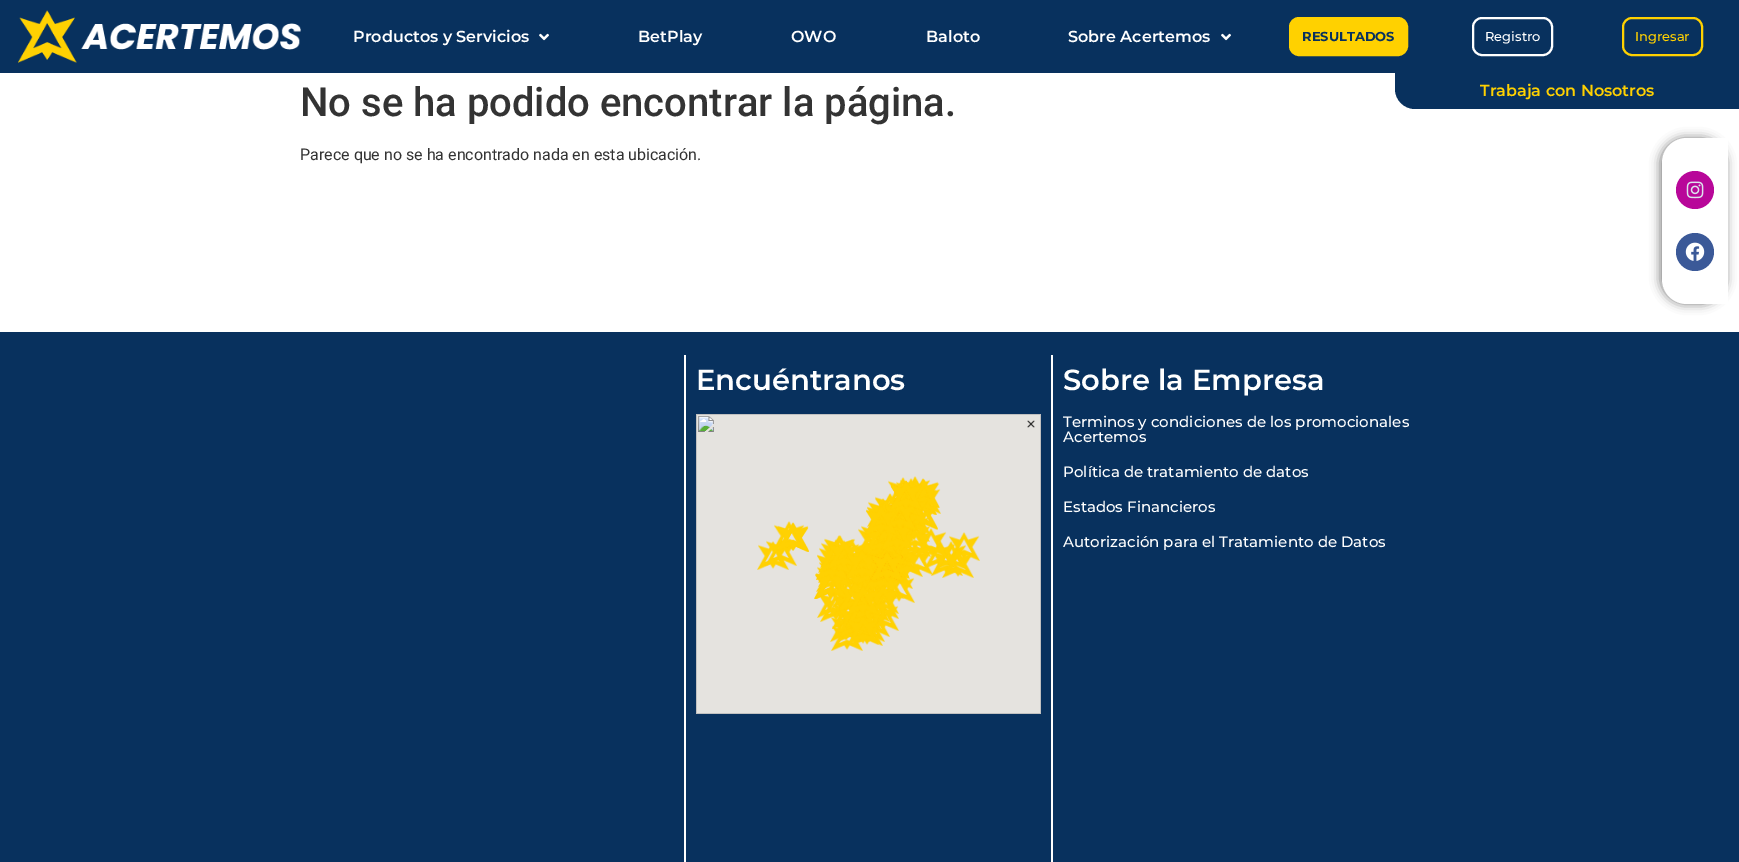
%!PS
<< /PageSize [1739 862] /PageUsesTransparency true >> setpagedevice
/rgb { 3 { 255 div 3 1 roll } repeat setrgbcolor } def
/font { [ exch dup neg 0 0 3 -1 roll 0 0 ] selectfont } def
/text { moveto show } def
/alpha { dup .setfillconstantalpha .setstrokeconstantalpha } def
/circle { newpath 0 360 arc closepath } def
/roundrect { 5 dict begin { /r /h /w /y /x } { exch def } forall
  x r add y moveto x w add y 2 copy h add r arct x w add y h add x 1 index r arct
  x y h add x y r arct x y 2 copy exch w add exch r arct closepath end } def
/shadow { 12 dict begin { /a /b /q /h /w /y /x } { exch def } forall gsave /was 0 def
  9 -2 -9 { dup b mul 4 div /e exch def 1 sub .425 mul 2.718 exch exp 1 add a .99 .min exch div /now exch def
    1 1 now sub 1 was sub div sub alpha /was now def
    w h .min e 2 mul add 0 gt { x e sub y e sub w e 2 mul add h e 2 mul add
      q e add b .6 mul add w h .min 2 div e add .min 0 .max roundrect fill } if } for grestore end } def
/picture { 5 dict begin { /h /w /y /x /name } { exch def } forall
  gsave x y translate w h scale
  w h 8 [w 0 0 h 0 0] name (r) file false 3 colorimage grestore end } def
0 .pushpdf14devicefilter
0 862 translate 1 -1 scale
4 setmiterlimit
255 255 255 rgb
0 0 1739 862 rectfill
8 49 94 rgb
0 0 1739 73 rectfill
(img_01.rgb) 18 10 283 53 picture
(img_02.rgb) 539 33 10 8 picture
(img_02.rgb) 1221 33 10 8 picture
255 209 0 rgb
1290 18 117 37 9 roundrect gsave fill grestore
2 setlinewidth
stroke
255 255 255 rgb
1473 18 79 37 9 roundrect stroke
255 209 0 rgb
1623 18 79 37 9 roundrect stroke
8 49 94 rgb
1395 73 moveto 344 0 rlineto 0 36 rlineto -324 0 rlineto -11 0 -20 -9 -20 -20 rcurveto closepath fill
0 0 0 rgb
1660 138 66 166 25 5 0.5 shadow
255 255 255 rgb
1687 138 moveto 41 0 rlineto 0 166 rlineto -41 0 rlineto -14 0 -25 -11 -25 -25 rcurveto 0 -116 rlineto 0 -14 11 -25 25 -25 rcurveto closepath fill
184 7 153 rgb
1695 190 19 circle fill
(img_03.rgb) 1686 181 18 18 picture
59 89 152 rgb
1695 252 19 circle fill
(img_04.rgb) 1685 242 20 19 picture
8 49 94 rgb
0 332 1739 530 rectfill
255 255 255 rgb
684 355 2 507 rectfill
1051 355 2 507 rectfill
(img_05.rgb) 696 414 345 300 picture
/Montserrat-SemiBold 16 font
(Productos y Servicios) 353 42 text
(BetPlay) 638 42 text
(OWO) 791 42 text
(Baloto) 926 42 text
(Sobre Acertemos) 1068 42 text
/Montserrat-Bold 13 font
8 49 94 rgb
(RESULTADOS) 1302 41 text
/Montserrat-Medium 13 font
255 255 255 rgb
(Registro) 1485 41 text
255 209 0 rgb
(Ingresar) 1635 41 text
/Montserrat-SemiBold 16 font
(Trabaja con Nosotros) 1480 96 text
/Roboto-Medium 40 font
51 51 51 rgb
(No se ha podido encontrar la página.) 300 116 text
/Roboto-Regular 16 font
(Parece que no se ha encontrado nada en esta ubicación.) 300 160 text
/Montserrat-SemiBold 29 font
255 255 255 rgb
(Encuéntranos) 696 390 text
(Sobre la Empresa) 1063 390 text
/Montserrat-Medium 15 font
(Terminos y condiciones de los promocionales) 1063 427 text
(Acertemos) 1063 442 text
(Política de tratamiento de datos) 1063 477 text
(Estados Financieros) 1063 512 text
(Autorización para el Tratamiento de Datos) 1063 547 text
.poppdf14devicefilter showpage
